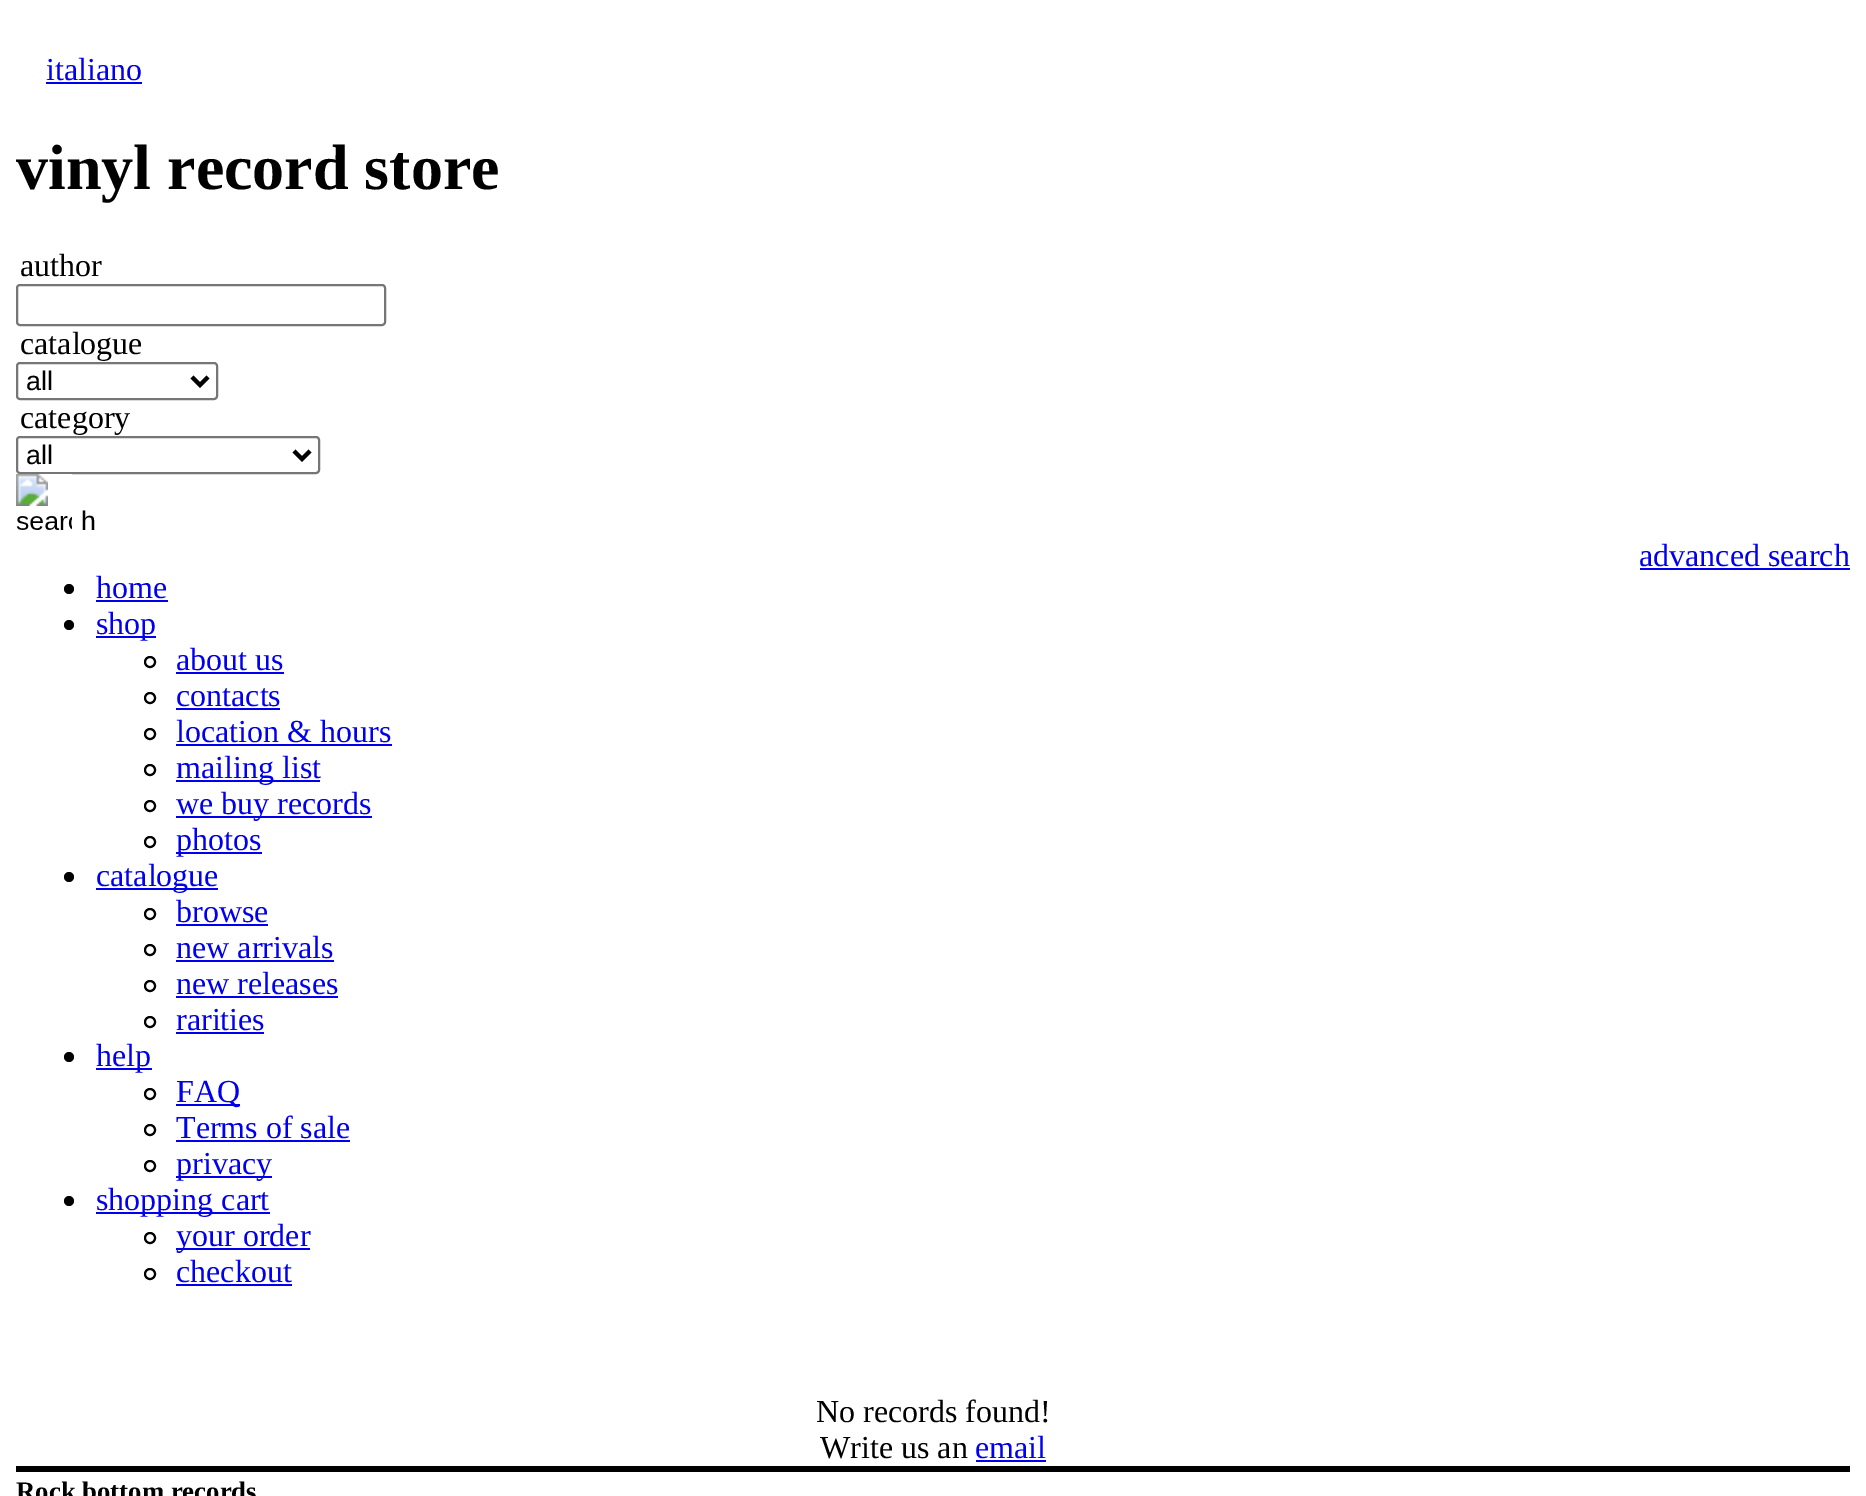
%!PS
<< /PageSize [1866 1496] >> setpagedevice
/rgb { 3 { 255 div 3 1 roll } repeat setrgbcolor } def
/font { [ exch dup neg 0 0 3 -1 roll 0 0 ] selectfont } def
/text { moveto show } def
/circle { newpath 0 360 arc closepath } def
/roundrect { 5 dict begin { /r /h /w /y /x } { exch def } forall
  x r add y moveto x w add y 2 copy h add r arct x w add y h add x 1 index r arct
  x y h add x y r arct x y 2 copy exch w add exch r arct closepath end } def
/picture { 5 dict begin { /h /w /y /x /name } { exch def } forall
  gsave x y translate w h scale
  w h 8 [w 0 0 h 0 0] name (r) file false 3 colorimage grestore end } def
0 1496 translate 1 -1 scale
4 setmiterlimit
255 255 255 rgb
0 0 1866 1496 rectfill
0 0 238 rgb
46 82 96 2 rectfill
118 118 118 rgb
2 setlinewidth
17 285 368 40 3 roundrect stroke
17 363 200 36 3 roundrect stroke
0 0 0 rgb
4 setlinewidth
192 377 moveto 8 8 rlineto 8 -8 rlineto stroke
118 118 118 rgb
2 setlinewidth
17 437 302 36 3 roundrect stroke
0 0 0 rgb
4 setlinewidth
294 451 moveto 8 8 rlineto 8 -8 rlineto stroke
(img_01.rgb) 16 474 56 56 picture
0 0 238 rgb
1640 568 210 2 rectfill
0 0 0 rgb
69 589 5 circle fill
0 0 238 rgb
96 600 72 2 rectfill
0 0 0 rgb
69 625 5 circle fill
0 0 238 rgb
96 636 60 2 rectfill
0 0 0 rgb
2 setlinewidth
150 662 5 circle stroke
0 0 238 rgb
176 672 108 2 rectfill
0 0 0 rgb
150 698 5 circle stroke
0 0 238 rgb
176 708 104 2 rectfill
0 0 0 rgb
150 734 5 circle stroke
0 0 238 rgb
176 744 216 2 rectfill
0 0 0 rgb
150 770 5 circle stroke
0 0 238 rgb
176 780 144 2 rectfill
0 0 0 rgb
150 806 5 circle stroke
0 0 238 rgb
176 816 196 2 rectfill
0 0 0 rgb
150 842 5 circle stroke
0 0 238 rgb
176 852 86 2 rectfill
0 0 0 rgb
69 877 5 circle fill
0 0 238 rgb
96 888 122 2 rectfill
0 0 0 rgb
150 914 5 circle stroke
0 0 238 rgb
176 924 92 2 rectfill
0 0 0 rgb
150 950 5 circle stroke
0 0 238 rgb
176 960 158 2 rectfill
0 0 0 rgb
150 986 5 circle stroke
0 0 238 rgb
176 996 162 2 rectfill
0 0 0 rgb
150 1022 5 circle stroke
0 0 238 rgb
176 1032 88 2 rectfill
0 0 0 rgb
69 1057 5 circle fill
0 0 238 rgb
96 1068 56 2 rectfill
0 0 0 rgb
150 1094 5 circle stroke
0 0 238 rgb
176 1104 64 2 rectfill
0 0 0 rgb
150 1130 5 circle stroke
0 0 238 rgb
176 1140 174 2 rectfill
0 0 0 rgb
150 1166 5 circle stroke
0 0 238 rgb
176 1176 96 2 rectfill
0 0 0 rgb
69 1201 5 circle fill
0 0 238 rgb
96 1212 174 2 rectfill
0 0 0 rgb
150 1238 5 circle stroke
0 0 238 rgb
176 1248 134 2 rectfill
0 0 0 rgb
150 1274 5 circle stroke
0 0 238 rgb
176 1284 116 2 rectfill
976 1460 70 2 rectfill
0 0 0 rgb
16 1466 1834 6 rectfill
/LiberationSerif-Regular 32 font
0 0 238 rgb
(italiano) 46 80 text
/LiberationSerif-Bold 64 font
0 0 0 rgb
(vinyl record store) 16 189 text
/LiberationSerif-Regular 32 font
(author) 20 276 text
(catalogue) 20 354 text
/LiberationSans-Regular 26.75 font
(all) 26 390 text
/LiberationSerif-Regular 32 font
(category) 20 428 text
/LiberationSans-Regular 26.75 font
(all) 26 464 text
(h) 81 530 text
/LiberationSerif-Regular 32 font
0 0 238 rgb
(advanced search) 1639 566 text
(home) 96 598 text
(shop) 96 634 text
(about us) 176 670 text
(contacts) 176 706 text
(location & hours) 176 742 text
(mailing list) 176 778 text
(we buy records) 176 814 text
(photos) 176 850 text
(catalogue) 96 886 text
(browse) 176 922 text
(new arrivals) 176 958 text
(new releases) 176 994 text
(rarities) 176 1030 text
(help) 96 1066 text
(FAQ) 176 1102 text
(Terms of sale) 176 1138 text
(privacy) 176 1174 text
(shopping cart) 96 1210 text
(your order) 176 1246 text
(checkout) 176 1282 text
0 0 0 rgb
(No records found!) 816 1422 text
(Write us an) 820 1458 text
0 0 238 rgb
(email) 975 1458 text
/LiberationSerif-Bold 26.75 font
0 0 0 rgb
(Rock bottom records) 16 1500 text
showpage
